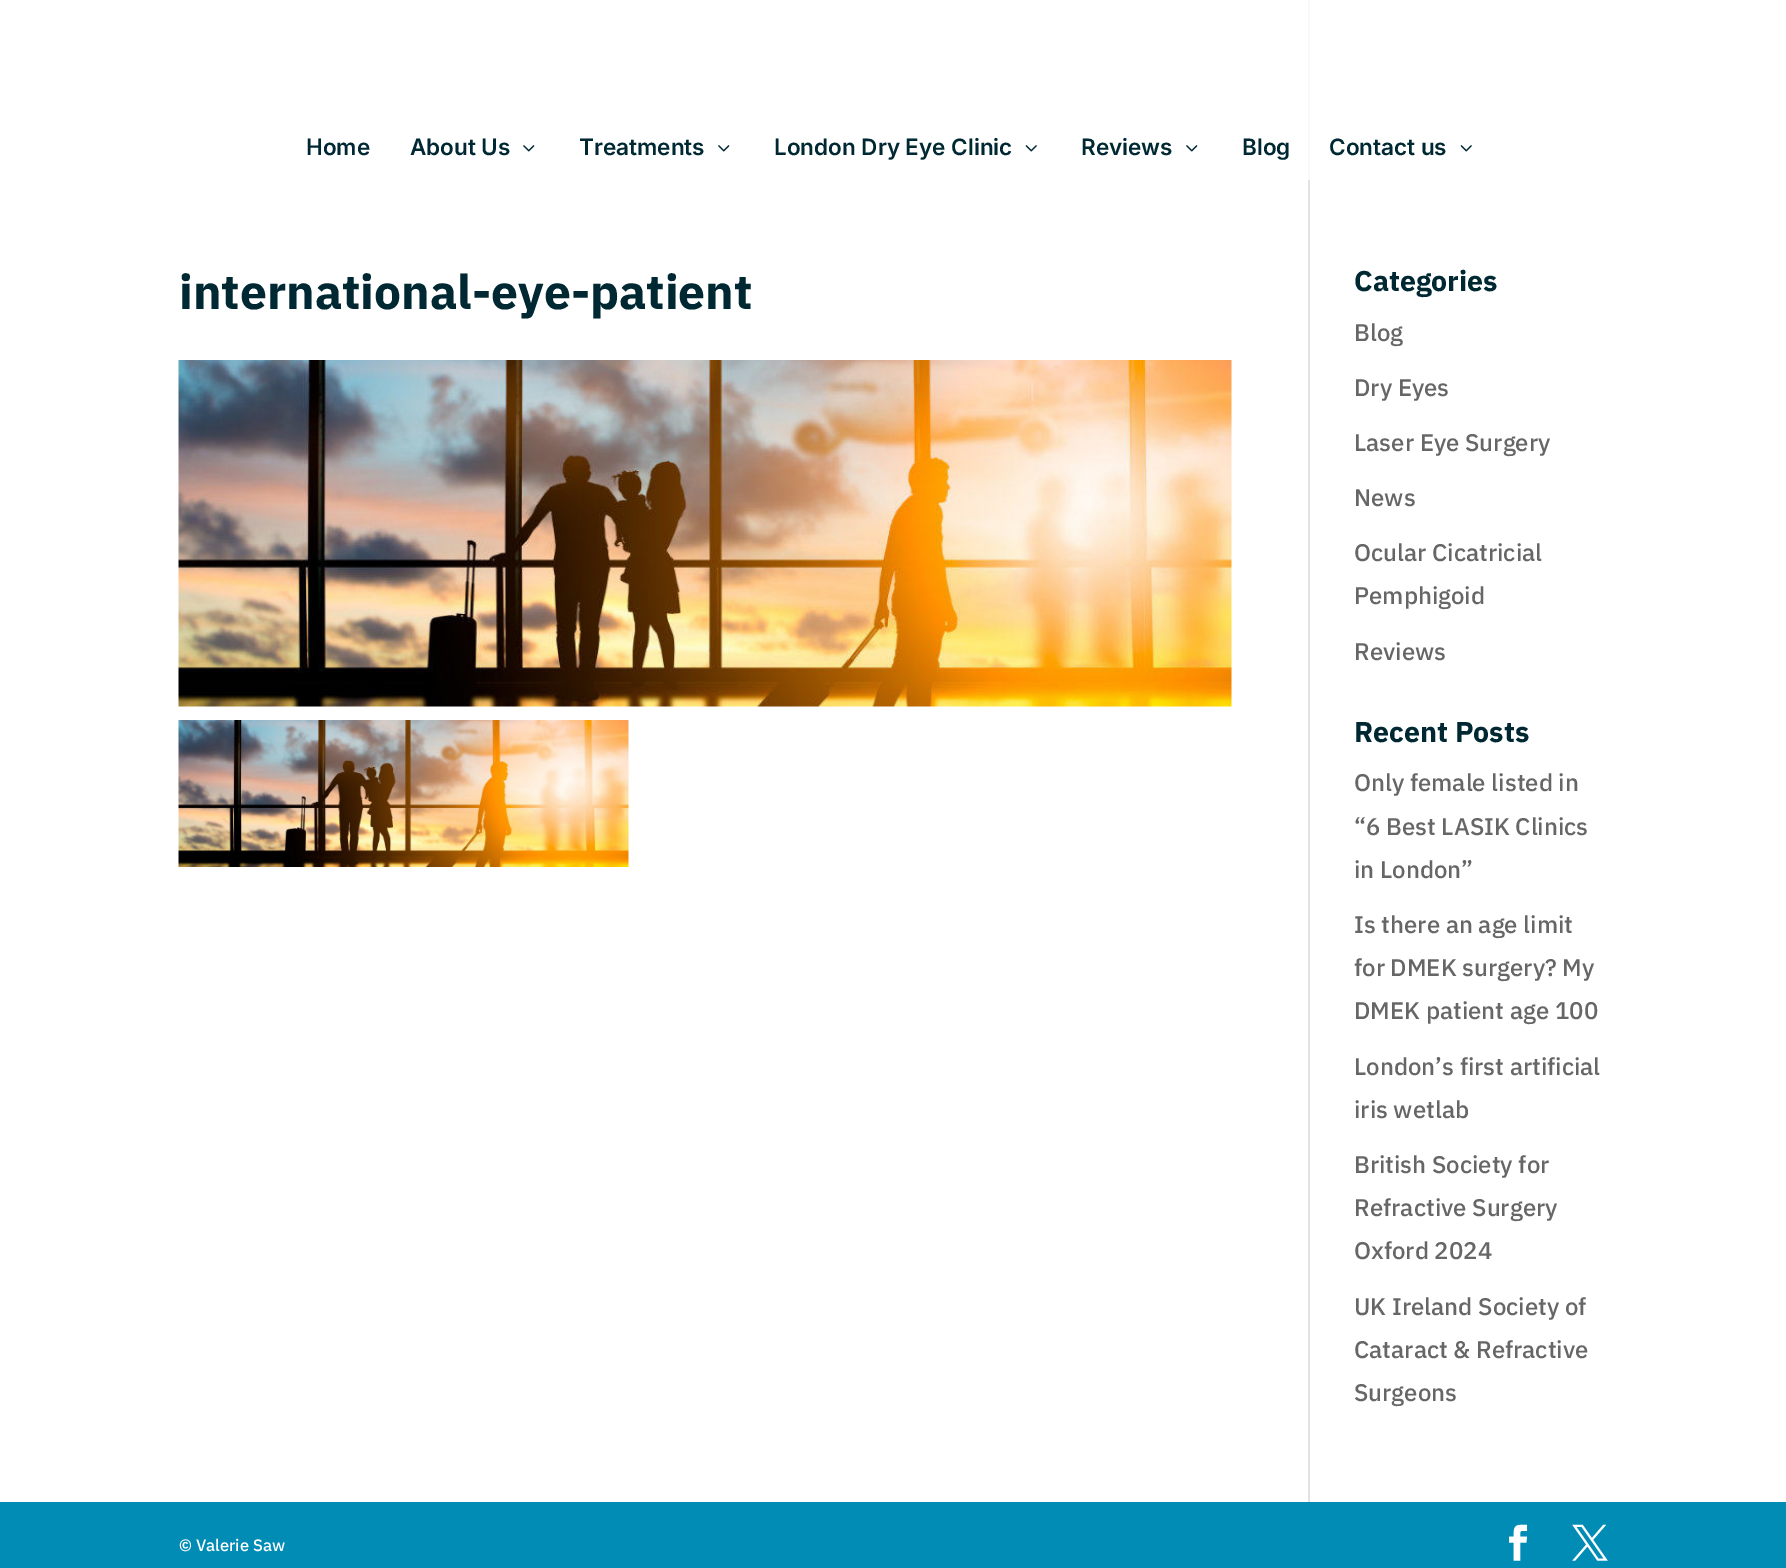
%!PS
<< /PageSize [1786 1568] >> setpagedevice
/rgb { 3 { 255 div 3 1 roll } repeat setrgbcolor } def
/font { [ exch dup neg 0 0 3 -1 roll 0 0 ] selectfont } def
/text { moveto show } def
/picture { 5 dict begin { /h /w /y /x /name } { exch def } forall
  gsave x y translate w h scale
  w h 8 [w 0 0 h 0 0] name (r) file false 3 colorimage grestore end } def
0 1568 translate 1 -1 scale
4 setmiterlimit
255 255 255 rgb
0 0 1786 1568 rectfill
(img_01.rgb) 523 145 12 7 picture
(img_01.rgb) 718 145 12 7 picture
(img_02.rgb) 1025 145 12 7 picture
(img_01.rgb) 1186 145 12 7 picture
(img_02.rgb) 1460 145 12 7 picture
226 226 226 rgb
1308 180 2 1322 rectfill
249 249 249 rgb
1308 0 2 180 rectfill
(img_03.rgb) 178 360 1054 347 picture
(img_04.rgb) 178 720 451 147 picture
0 140 181 rgb
0 1502 1786 66 rectfill
(img_05.rgb) 1509 1524 19 37 picture
(img_06.rgb) 1572 1524 36 37 picture
/Inter-SemiBold 22.5 font
0 40 51 rgb
(Home) 306 155 text
(About Us) 410 155 text
(Treatments) 579 155 text
(London Dry Eye Clinic) 774 155 text
(Reviews) 1081 155 text
(Blog) 1242 155 text
(Contact us) 1329 155 text
/IBMPlexSans-Bold 48 font
(international-eye-patient) 179 309 text
/IBMPlexSans-Bold 28.5 font
(Categories) 1354 291 text
/IBMPlexSans-Medium 24 font
102 102 102 rgb
(Blog) 1354 341 text
(Dry Eyes) 1354 396 text
(Laser Eye Surgery) 1354 451 text
(News) 1354 506 text
(Ocular Cicatricial) 1354 561 text
(Pemphigoid) 1354 604 text
(Reviews) 1354 660 text
/IBMPlexSans-Bold 28.5 font
0 40 51 rgb
(Recent Posts) 1354 742 text
/IBMPlexSans-Medium 24 font
102 102 102 rgb
(Only female listed in) 1354 791 text
(“6 Best LASIK Clinics) 1354 835 text
(in London”) 1354 878 text
(Is there an age limit) 1354 933 text
(for DMEK surgery? My) 1354 976 text
(DMEK patient age 100) 1354 1019 text
(London’s first artificial) 1354 1075 text
(iris wetlab) 1354 1118 text
(British Society for) 1354 1173 text
(Refractive Surgery) 1354 1216 text
(Oxford 2024) 1354 1259 text
(UK Ireland Society of) 1354 1315 text
(Cataract & Refractive) 1354 1358 text
(Surgeons) 1354 1401 text
/IBMPlexSans-Medium 16.5 font
255 255 255 rgb
(© Valerie Saw) 179 1551 text
showpage
